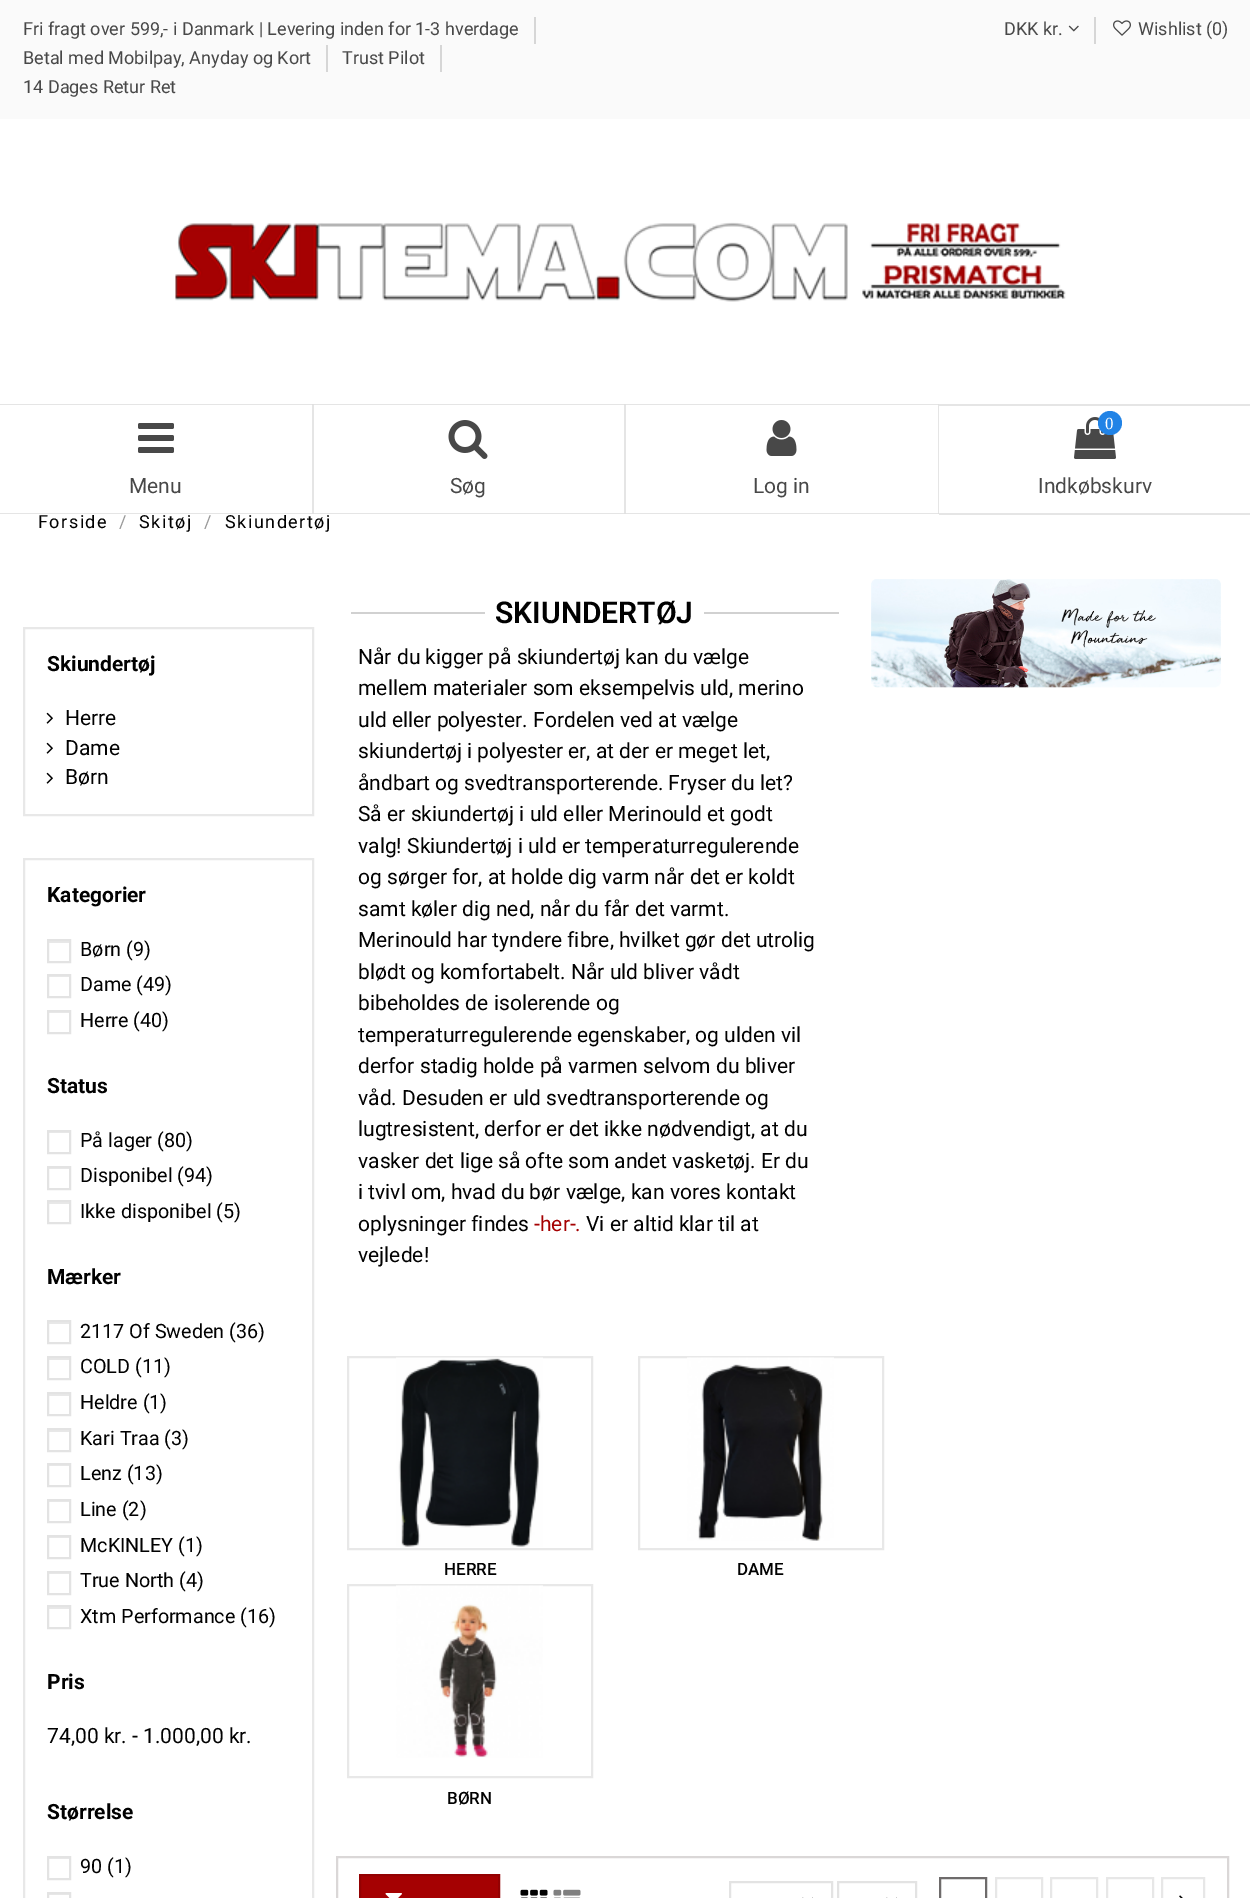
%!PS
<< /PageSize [1250 1898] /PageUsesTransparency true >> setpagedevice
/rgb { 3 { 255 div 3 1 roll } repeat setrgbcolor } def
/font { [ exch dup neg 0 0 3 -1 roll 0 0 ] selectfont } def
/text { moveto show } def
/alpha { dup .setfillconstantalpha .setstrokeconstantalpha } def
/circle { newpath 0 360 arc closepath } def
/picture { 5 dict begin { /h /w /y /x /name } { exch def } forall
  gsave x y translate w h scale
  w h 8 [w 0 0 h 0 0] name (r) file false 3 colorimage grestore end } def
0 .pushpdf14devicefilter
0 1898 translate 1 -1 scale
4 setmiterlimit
255 255 255 rgb
0 0 1250 1898 rectfill
250 250 250 rgb
0 0 1250 119 rectfill
214 214 214 rgb
534 17 2 27 rectfill
326 45 2 27 rectfill
440 45 2 27 rectfill
(img_01.rgb) 1068 25 11 7 picture
1094 17 2 27 rectfill
(img_02.rgb) 1113 20 18 16 picture
(img_03.rgb) 175 222 891 80 picture
229 229 229 rgb
0 404 moveto 314 0 rlineto -2 1 rlineto -312 0 rlineto closepath fill
0.11 alpha
21 21 21 rgb
314 404 moveto 0 110 rlineto -2 -1 rlineto 0 -108 rlineto closepath fill
314 514 moveto -314 0 rlineto 0 -1 rlineto 312 0 rlineto closepath fill
1 alpha
(img_04.rgb) 138 423 36 30 picture
229 229 229 rgb
314 404 moveto 312 0 rlineto -2 1 rlineto -310 0 rlineto closepath fill
0.11 alpha
21 21 21 rgb
626 404 moveto 0 110 rlineto -2 -1 rlineto 0 -108 rlineto closepath fill
626 514 moveto -312 0 rlineto 0 -1 rlineto 310 0 rlineto closepath fill
1 alpha
(img_05.rgb) 448 420 40 39 picture
229 229 229 rgb
626 404 moveto 313 0 rlineto -1 1 rlineto -312 0 rlineto closepath fill
0.11 alpha
21 21 21 rgb
939 404 moveto 0 110 rlineto -1 -1 rlineto 0 -108 rlineto closepath fill
939 514 moveto -313 0 rlineto 0 -1 rlineto 312 0 rlineto closepath fill
1 alpha
(img_06.rgb) 766 420 31 36 picture
229 229 229 rgb
939 404 311 2 rectfill
939 513 311 2 rectfill
(img_07.rgb) 1074 417 42 42 picture
33 131 230 rgb
1110 423 12 circle fill
232 232 232 rgb
2 setlinewidth
24 628 289 187 rectstroke
(img_08.rgb) 46 712 7 12 picture
(img_08.rgb) 46 742 7 12 picture
(img_08.rgb) 46 772 7 12 picture
24 859 289 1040 rectstroke
48 941 21 2 rectfill
227 227 227 rgb
48 940 22 22 rectstroke
232 232 232 rgb
48 976 21 1 rectfill
227 227 227 rgb
48 975 22 22 rectstroke
232 232 232 rgb
48 1012 21 1 rectfill
227 227 227 rgb
48 1011 22 22 rectstroke
232 232 232 rgb
48 1132 21 1 rectfill
227 227 227 rgb
48 1131 22 22 rectstroke
232 232 232 rgb
48 1168 21 1 rectfill
227 227 227 rgb
48 1167 22 22 rectstroke
232 232 232 rgb
48 1202 21 2 rectfill
227 227 227 rgb
48 1201 22 22 rectstroke
232 232 232 rgb
48 1322 21 2 rectfill
227 227 227 rgb
48 1321 22 22 rectstroke
232 232 232 rgb
48 1358 21 2 rectfill
227 227 227 rgb
48 1357 22 22 rectstroke
232 232 232 rgb
48 1394 21 2 rectfill
227 227 227 rgb
48 1393 22 22 rectstroke
232 232 232 rgb
48 1430 21 2 rectfill
227 227 227 rgb
48 1429 22 22 rectstroke
232 232 232 rgb
48 1465 21 1 rectfill
227 227 227 rgb
48 1464 22 22 rectstroke
232 232 232 rgb
48 1501 21 1 rectfill
227 227 227 rgb
48 1500 22 22 rectstroke
232 232 232 rgb
48 1537 21 1 rectfill
227 227 227 rgb
48 1536 22 22 rectstroke
232 232 232 rgb
48 1573 21 1 rectfill
227 227 227 rgb
48 1572 22 22 rectstroke
232 232 232 rgb
48 1607 21 2 rectfill
227 227 227 rgb
48 1606 22 22 rectstroke
232 232 232 rgb
48 1858 21 1 rectfill
227 227 227 rgb
48 1857 22 22 rectstroke
232 232 232 rgb
48 1894 21 1 rectfill
227 227 227 rgb
48 1893 22 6 rectstroke
209 209 209 rgb
351 612 134 2 rectfill
704 612 135 2 rectfill
(img_09.rgb) 871 579 350 109 picture
232 232 232 rgb
348 1357 244 192 rectstroke
(img_10.rgb) 396 1357 147 190 picture
639 1357 244 192 rectstroke
(img_11.rgb) 687 1357 147 184 picture
348 1585 244 192 rectstroke
(img_12.rgb) 396 1585 147 173 picture
218 215 215 rgb
337 1857 891 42 rectstroke
165 1 2 rgb
360 1875 moveto 139 0 rlineto 0 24 rlineto -139 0 rlineto closepath gsave fill grestore
147 1 2 rgb
stroke
(img_13.rgb) 385 1893 17 5 picture
(img_14.rgb) 520 1889 28 9 picture
(img_15.rgb) 553 1889 28 9 picture
227 227 227 rgb
730 1882 102 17 rectstroke
(img_16.rgb) 802 1897 11 1 picture
838 1882 78 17 rectstroke
(img_16.rgb) 886 1897 11 1 picture
110 107 107 rgb
940 1878 46 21 rectstroke
231 231 231 rgb
996 1878 46 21 rectstroke
1051 1878 46 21 rectstroke
1107 1878 46 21 rectstroke
1162 1878 42 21 rectstroke
(img_17.rgb) 1179 1895 4 3 picture
/Roboto-Regular 18 font
72 72 72 rgb
(Fri fragt over 599,- i Danmark | Levering inden for 1-3 hverdage) 23 35 text
(Betal med Mobilpay, Anyday og Kort) 23 64 text
(Trust Pilot) 342 64 text
(14 Dages Retur Ret) 23 93 text
(DKK kr.) 1004 35 text
(Wishlist \(0\)) 1138 35 text
/Roboto-Regular 21 font
(Menu) 129 493 text
(Søg) 450 493 text
(Log in) 753 493 text
/LiberationSerif-Regular 17 font
255 255 255 rgb
(0) 1105 429 text
/Roboto-Regular 21 font
72 72 72 rgb
(Indkøbskurv) 1038 493 text
/Roboto-Regular 18 font
1 1 1 rgb
38 528 moveto 1.5 0 (Forside) ashow
153 153 153 rgb
119 528 moveto 1.5 0 (/) ashow
1 1 1 rgb
139 528 moveto 1.5 0 (Skitøj) ashow
153 153 153 rgb
204 528 moveto 1.5 0 (/) ashow
1 1 1 rgb
225 528 moveto 1.5 0 (Skiundertøj) ashow
255 255 255 rgb
92 514 194 1 rectfill
/Roboto-Bold 21 font
1 1 1 rgb
(Skiundertøj) 47 671 text
/Roboto-Regular 21 font
(Herre) 65 725 text
(Dame) 65 755 text
(Børn) 65 784 text
/Roboto-Bold 21 font
(Kategorier) 47 902 text
/Roboto-Regular 19.75 font
(Børn \(9\)) 80 956 text
(Dame \(49\)) 80 991 text
(Herre \(40\)) 80 1027 text
/Roboto-Bold 21 font
(Status) 47 1093 text
/Roboto-Regular 19.75 font
(På lager \(80\)) 80 1147 text
(Disponibel \(94\)) 80 1182 text
(Ikke disponibel \(5\)) 80 1218 text
/Roboto-Bold 21 font
(Mærker) 47 1284 text
/Roboto-Regular 19.75 font
(2117 Of Sweden \(36\)) 80 1338 text
(COLD \(11\)) 80 1373 text
(Heldre \(1\)) 80 1409 text
(Kari Traa \(3\)) 80 1445 text
(Lenz \(13\)) 80 1480 text
(Line \(2\)) 80 1516 text
(McKINLEY \(1\)) 80 1552 text
(True North \(4\)) 80 1587 text
(Xtm Performance \(16\)) 80 1623 text
/Roboto-Bold 21 font
(Pris) 47 1689 text
/Roboto-Regular 21 font
(74,00 kr. - 1.000,00 kr.) 47 1743 text
/Roboto-Bold 21 font
(Størrelse) 47 1819 text
/Roboto-Regular 19.75 font
(90 \(1\)) 80 1873 text
/Roboto-SemiBold 30 font
(SKIUNDERTØJ) 495 623 text
/Roboto-Regular 21 font
(Når du kigger på skiundertøj kan du vælge) 358 664 text
(mellem materialer som eksempelvis uld, merino) 358 695 text
(uld eller polyester. Fordelen ved at vælge) 358 727 text
(skiundertøj i polyester er, at der er meget let,) 358 758 text
(åndbart og svedtransporterende. Fryser du let?) 358 790 text
(Så er skiundertøj i uld eller Merinould et godt) 358 821 text
(valg! Skiundertøj i uld er temperaturregulerende) 358 853 text
(og sørger for, at holde dig varm når det er koldt) 358 884 text
(samt køler dig ned, når du får det varmt.) 358 916 text
(Merinould har tyndere fibre, hvilket gør det utrolig) 358 947 text
(blødt og komfortabelt. Når uld bliver vådt) 358 979 text
(bibeholdes de isolerende og) 358 1010 text
(temperaturregulerende egenskaber, og ulden vil) 358 1042 text
(derfor stadig holde på varmen selvom du bliver) 358 1073 text
(våd. Desuden er uld svedtransporterende og) 358 1105 text
(lugtresistent, derfor er det ikke nødvendigt, at du) 358 1136 text
(vasker det lige så ofte som andet vasketøj. Er du) 358 1168 text
(i tvivl om, hvad du bør vælge, kan vores kontakt) 358 1199 text
(oplysninger findes) 358 1231 text
165 1 2 rgb
(-her-.) 534 1231 text
1 1 1 rgb
(Vi er altid klar til at) 586 1231 text
(vejlede!) 358 1262 text
/Roboto-Medium 17 font
(HERRE) 444 1575 text
(DAME) 737 1575 text
(BØRN) 447 1804 text
.poppdf14devicefilter showpage
